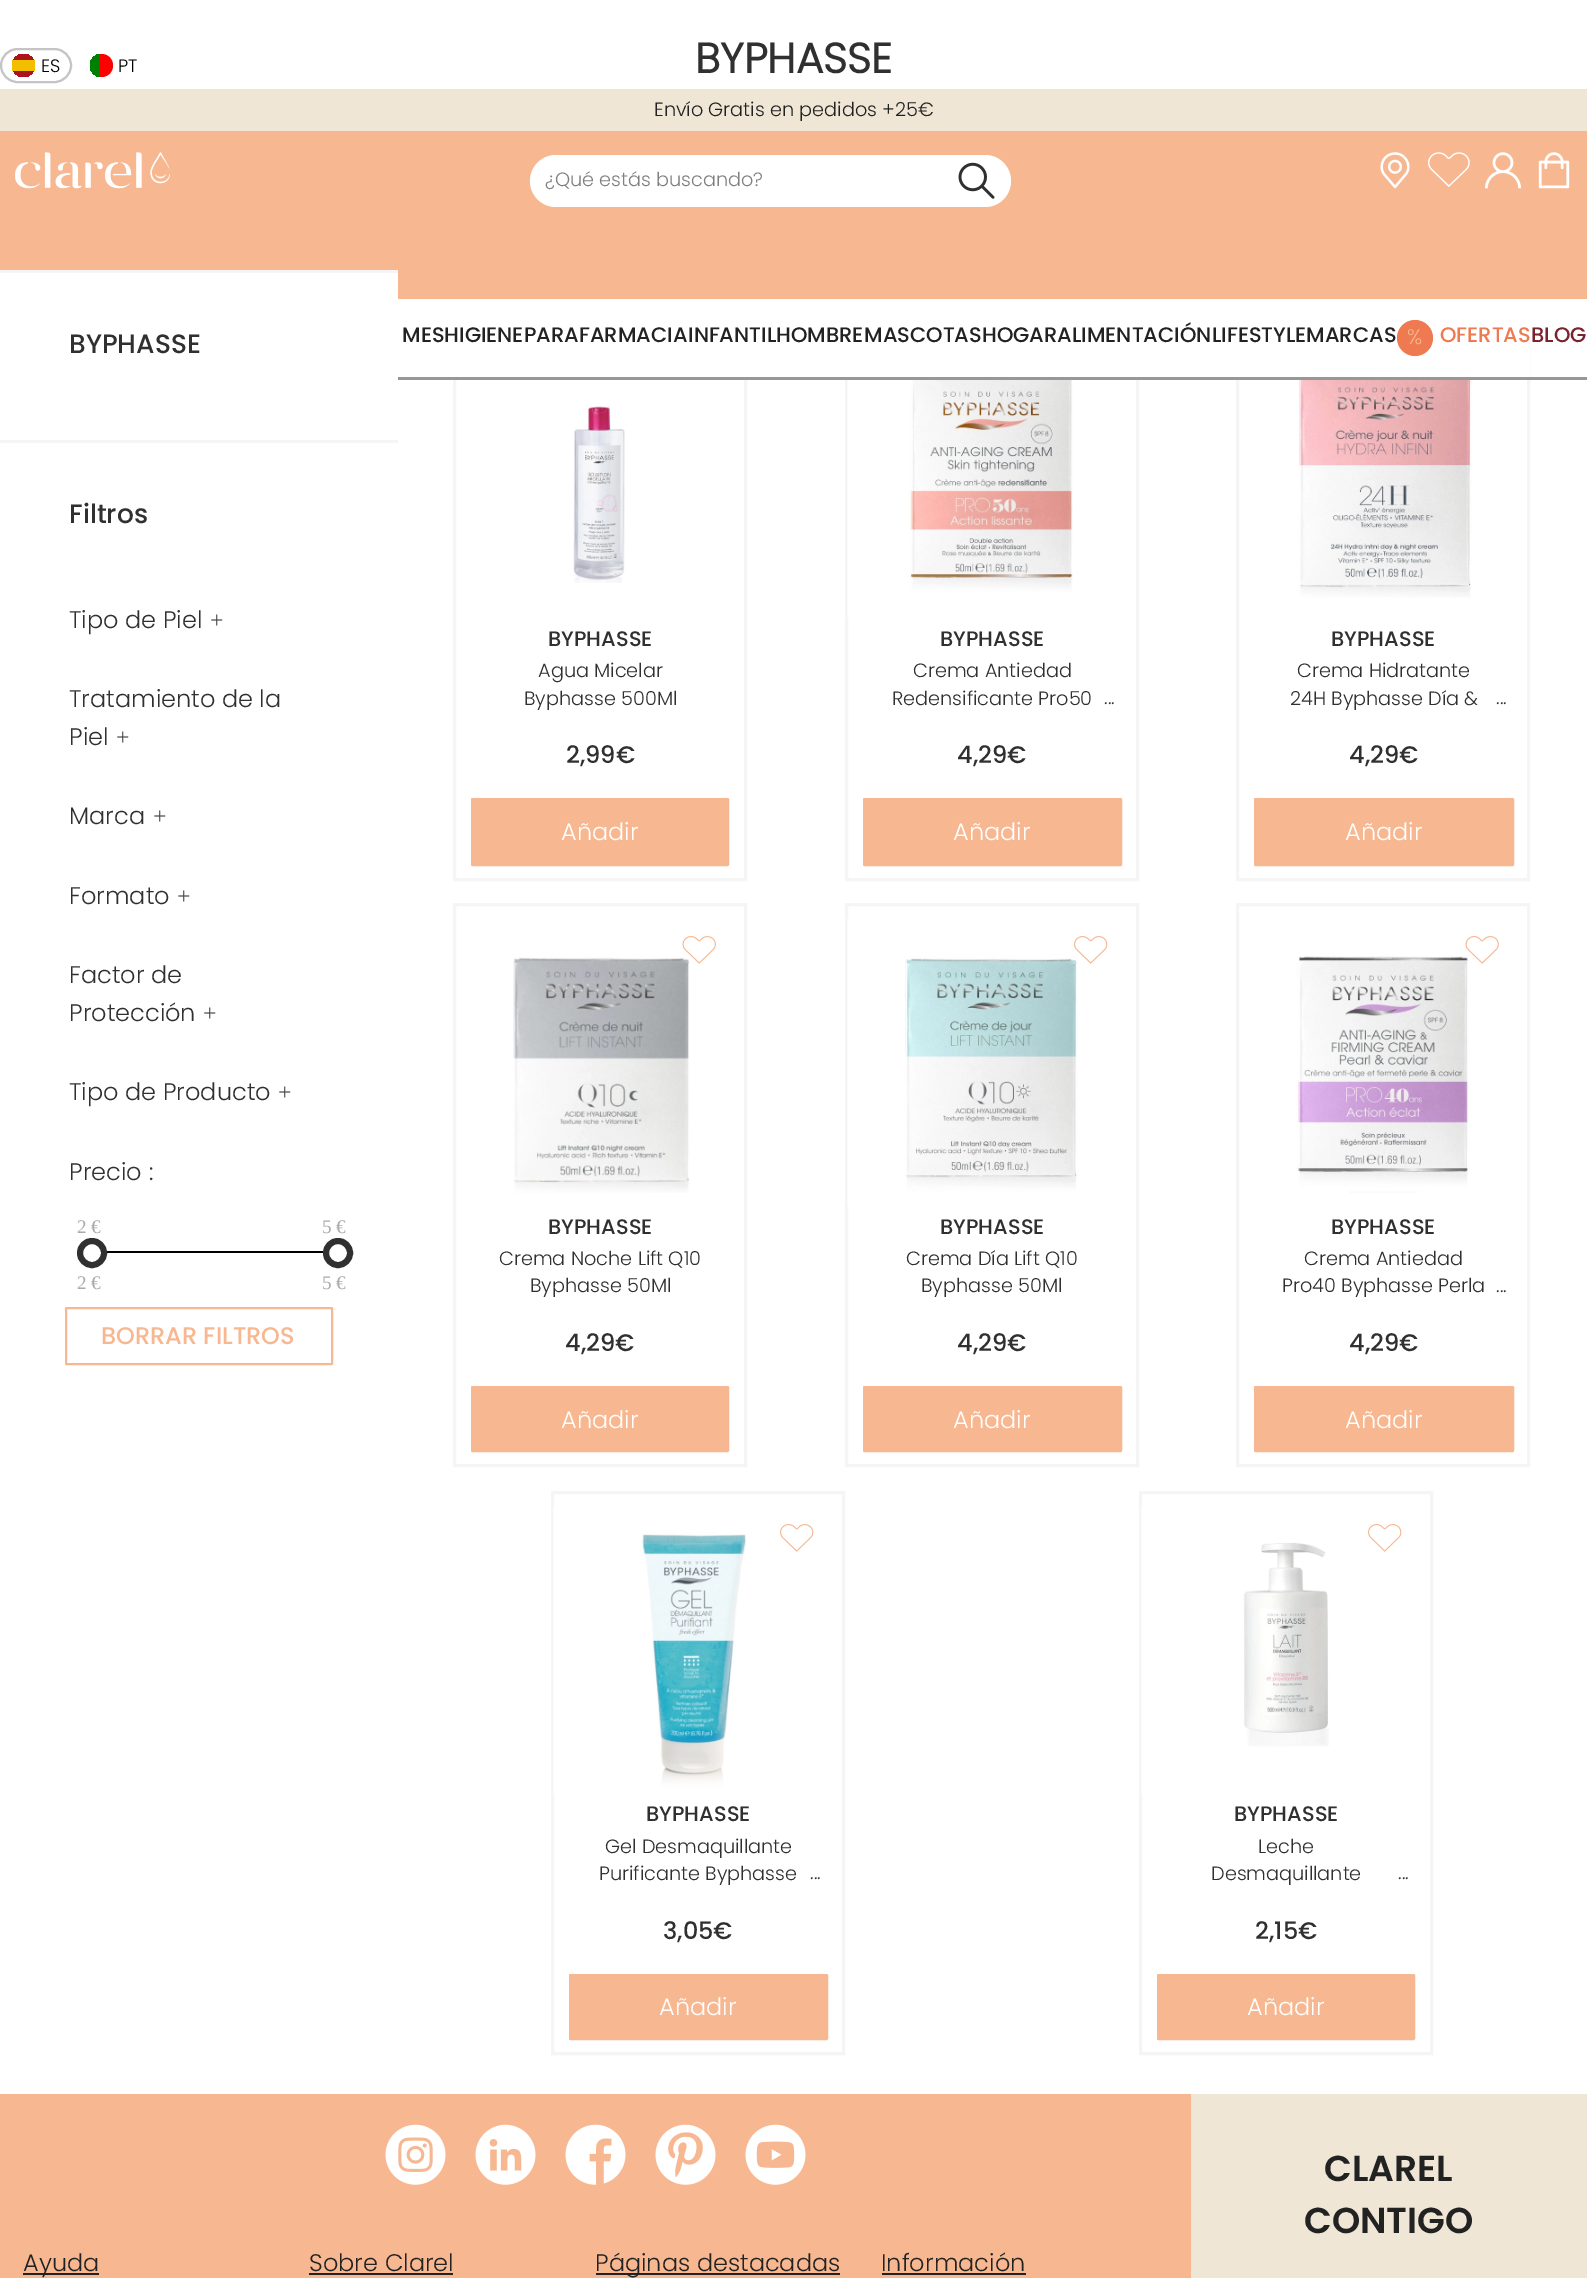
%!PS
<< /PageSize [1587 2278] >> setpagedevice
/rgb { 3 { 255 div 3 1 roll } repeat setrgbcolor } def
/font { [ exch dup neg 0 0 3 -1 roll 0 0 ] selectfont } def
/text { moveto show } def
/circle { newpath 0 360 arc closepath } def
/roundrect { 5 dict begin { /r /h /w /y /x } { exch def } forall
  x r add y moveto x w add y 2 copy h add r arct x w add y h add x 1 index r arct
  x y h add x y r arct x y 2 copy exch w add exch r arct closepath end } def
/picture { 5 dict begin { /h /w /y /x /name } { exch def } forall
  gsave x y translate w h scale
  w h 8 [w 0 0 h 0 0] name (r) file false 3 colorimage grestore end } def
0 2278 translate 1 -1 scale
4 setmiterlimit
255 255 255 rgb
0 0 1587 2278 rectfill
247 183 144 rgb
0 131 1587 168 rectfill
255 255 255 rgb
0 273 398 26 rectfill
245 245 245 rgb
0 270 398 3 rectfill
0 440 398 3 rectfill
0 0 0 rgb
106 1251 218 2 rectfill
255 255 255 rgb
92 1253 12 circle gsave fill grestore
48 48 48 rgb
6 setlinewidth
stroke
255 255 255 rgb
338 1253 12 circle gsave fill grestore
48 48 48 rgb
stroke
247 183 144 rgb
2 setlinewidth
66 1308 266 56 0.5 roundrect stroke
245 245 245 rgb
3 setlinewidth
454.5 318.5 291 561 rectstroke
(img_01.rgb) 573 406 52 177 picture
247 183 144 rgb
472 799 256 66 0.5 roundrect gsave fill grestore
2 setlinewidth
stroke
245 245 245 rgb
3 setlinewidth
846.5 318.5 291 561 rectstroke
(img_02.rgb) 847 380 226 238 picture
247 183 144 rgb
864 799 257 66 0.5 roundrect gsave fill grestore
2 setlinewidth
stroke
245 245 245 rgb
3 setlinewidth
1237.5 318.5 291 561 rectstroke
(img_03.rgb) 1299 380 173 218 picture
247 183 144 rgb
1255 799 258 66 0.5 roundrect gsave fill grestore
2 setlinewidth
stroke
245 245 245 rgb
3 setlinewidth
454.5 904.5 291 561 rectstroke
(img_05.rgb) 513 957 177 236 picture
(img_04.rgb) 682 936 34 28 picture
247 183 144 rgb
472 1387 256 64 0.5 roundrect gsave fill grestore
2 setlinewidth
stroke
245 245 245 rgb
3 setlinewidth
846.5 904.5 291 561 rectstroke
(img_06.rgb) 847 918 231 288 picture
(img_07.rgb) 1074 936 34 28 picture
247 183 144 rgb
864 1387 257 64 0.5 roundrect gsave fill grestore
2 setlinewidth
stroke
245 245 245 rgb
3 setlinewidth
1237.5 904.5 291 561 rectstroke
(img_09.rgb) 1296 956 172 237 picture
(img_08.rgb) 1465 936 34 28 picture
247 183 144 rgb
1255 1387 258 64 0.5 roundrect gsave fill grestore
2 setlinewidth
stroke
245 245 245 rgb
3 setlinewidth
552.5 1492.5 291 561 rectstroke
(img_10.rgb) 553 1506 193 288 picture
(img_11.rgb) 780 1524 34 28 picture
247 183 144 rgb
570 1975 257 64 0.5 roundrect gsave fill grestore
2 setlinewidth
stroke
245 245 245 rgb
3 setlinewidth
1140.5 1492.5 291 561 rectstroke
(img_12.rgb) 1141 1506 188 288 picture
(img_11.rgb) 1368 1524 34 28 picture
247 183 144 rgb
1158 1975 256 64 0.5 roundrect gsave fill grestore
2 setlinewidth
stroke
196 196 196 rgb
1 49 70 33 16.5 roundrect stroke
gsave
12 54 23 23 11.5 roundrect clip newpath
170 21 27 rgb
12 54 23 6 rectfill
241 191 0 rgb
12 60 23 11 rectfill
170 21 27 rgb
12 71 23 6 rectfill
grestore
gsave
90 54 23 23 11.5 roundrect clip newpath
0 128 0 rgb
90 54 9 23 rectfill
255 0 0 rgb
99 54 moveto 2.5 0 rlineto 6.5 0 11.5 5 11.5 11.5 rcurveto 0 6.5 -5 11.5 -11.5 11.5 rcurveto -2.5 0 rlineto closepath fill
grestore
240 230 214 rgb
0 89 1587 42 rectfill
(img_13.rgb) 15 152 155 37 picture
255 255 255 rgb
530 155 481 52 26 roundrect fill
(img_14.rgb) 958 162 37 37 picture
(img_15.rgb) 1380 152 30 37 picture
(img_16.rgb) 1428 152 42 35 picture
(img_17.rgb) 1485 152 36 37 picture
(img_18.rgb) 1538 152 32 37 picture
453 317 1077 60 rectfill
151 151 151 rgb
398 377 1189 3 rectfill
239 121 80 rgb
1415 338 18 circle fill
247 183 144 rgb
0 2094 1191 184 rectfill
240 230 214 rgb
1191 2094 396 184 rectfill
(img_19.rgb) 385 2124 61 61 picture
(img_20.rgb) 475 2124 61 61 picture
(img_21.rgb) 565 2124 61 61 picture
(img_22.rgb) 655 2124 61 61 picture
(img_23.rgb) 745 2124 61 61 picture
34 34 34 rgb
23 2273 76 2 rectfill
309 2273 144 2 rectfill
596 2273 244 2 rectfill
882 2273 144 2 rectfill
/Poppins-Bold 42 font
48 48 48 rgb
(BYPHASSE) 695 73 text
/Poppins-Medium 26.5 font
(BYPHASSE) 69 353 text
(Filtros) 69 523 text
/Poppins-Light 24 font
(Tipo de Piel) 69 628 text
/LiberationSerif-Regular 24 font
(+) 210 628 text
/Poppins-Light 24 font
(Tratamiento de la) 69 707 text
(Piel) 69 745 text
/LiberationSerif-Regular 24 font
(+) 116 745 text
/Poppins-Light 24 font
(Marca) 69 824 text
/LiberationSerif-Regular 24 font
(+) 153 824 text
/Poppins-Light 24 font
(Formato) 69 904 text
/LiberationSerif-Regular 24 font
(+) 177 904 text
/Poppins-Light 24 font
(Factor de) 69 983 text
(Protección) 69 1021 text
/LiberationSerif-Regular 24 font
(+) 203 1021 text
/Poppins-Light 24 font
(Tipo de Producto) 69 1100 text
/LiberationSerif-Regular 24 font
(+) 278 1100 text
/Poppins-Light 24 font
(Precio) 69 1180 text
(:) 149 1180 text
/LiberationSerif-Regular 19.25 font
170 170 170 rgb
(2 €) 77 1233 text
(5 €) 322 1233 text
(2 €) 77 1289 text
(5 €) 322 1289 text
/Poppins-Medium 24 font
247 183 144 rgb
(BORRAR FILTROS) 101 1344 text
/Poppins-Medium 21 font
48 48 48 rgb
(BYPHASSE) 548 646 text
/Poppins-Light 19.25 font
(Agua Micelar) 538 677 text
(Byphasse 500Ml) 524 705 text
/Poppins-Medium 24 font
(2,99€) 566 763 text
/Poppins-Light 24 font
255 255 255 rgb
(Añadir) 561 840 text
/Poppins-Medium 21 font
48 48 48 rgb
(BYPHASSE) 940 646 text
/Poppins-Light 19.25 font
(Crema Antiedad) 913 677 text
(Redensificante Pro50) 892 705 text
(...) 1104 704 text
/Poppins-Medium 24 font
(4,29€) 957 763 text
/Poppins-Light 24 font
255 255 255 rgb
(Añadir) 953 840 text
/Poppins-Medium 21 font
48 48 48 rgb
(BYPHASSE) 1331 646 text
/Poppins-Light 19.25 font
(Crema Hidratante) 1297 677 text
(24H Byphasse Día &) 1290 705 text
(...) 1496 704 text
/Poppins-Medium 24 font
(4,29€) 1349 763 text
/Poppins-Light 24 font
255 255 255 rgb
(Añadir) 1345 840 text
/Poppins-Medium 21 font
48 48 48 rgb
(BYPHASSE) 548 1234 text
/Poppins-Light 19.25 font
(Crema Noche Lift Q10) 499 1265 text
(Byphasse 50Ml) 530 1292 text
/Poppins-Medium 24 font
(4,29€) 565 1351 text
/Poppins-Light 24 font
255 255 255 rgb
(Añadir) 561 1428 text
/Poppins-Medium 21 font
48 48 48 rgb
(BYPHASSE) 940 1234 text
/Poppins-Light 19.25 font
(Crema Día Lift Q10) 906 1265 text
(Byphasse 50Ml) 921 1292 text
/Poppins-Medium 24 font
(4,29€) 957 1351 text
/Poppins-Light 24 font
255 255 255 rgb
(Añadir) 953 1428 text
/Poppins-Medium 21 font
48 48 48 rgb
(BYPHASSE) 1331 1234 text
/Poppins-Light 19.25 font
(Crema Antiedad) 1304 1265 text
(Pro40 Byphasse Perla) 1282 1292 text
(...) 1496 1292 text
/Poppins-Medium 24 font
(4,29€) 1349 1351 text
/Poppins-Light 24 font
255 255 255 rgb
(Añadir) 1345 1428 text
/Poppins-Medium 21 font
48 48 48 rgb
(BYPHASSE) 646 1821 text
/Poppins-Light 19.25 font
(Gel Desmaquillante) 605 1853 text
(Purificante Byphasse) 599 1880 text
(...) 810 1879 text
/Poppins-Medium 24 font
(3,05€) 663 1939 text
/Poppins-Light 24 font
255 255 255 rgb
(Añadir) 659 2015 text
/Poppins-Medium 21 font
48 48 48 rgb
(BYPHASSE) 1234 1821 text
/Poppins-Light 19.25 font
(Leche) 1258 1853 text
(Desmaquillante) 1211 1880 text
(...) 1398 1879 text
/Poppins-Medium 24 font
(2,15€) 1255 1939 text
/Poppins-Light 24 font
255 255 255 rgb
(Añadir) 1247 2015 text
/Poppins-Light 18 font
0 0 0 rgb
(ES) 41 72 text
(PT) 118 72 text
/Poppins-Light 19.25 font
34 34 34 rgb
(Envío Gratis en pedidos +25€) 654 116 text
128 128 128 rgb
(¿Qué estás buscando?) 545 186 text
/Poppins-Medium 21 font
34 34 34 rgb
(MESHIGIENE) 402 342 text
(PARAFARMACIA) 524 342 text
(INFANTILHOMBRE) 688 342 text
(MASCOTAS) 864 342 text
(HOGARALIMENTACIÓN) 982 342 text
(LIFESTYLEMARCAS) 1212 342 text
/Poppins-Light 21 font
247 183 144 rgb
(%) 1407 344 text
/Poppins-Medium 21 font
239 121 80 rgb
(OFERTAS) 1440 342 text
121 35 47 rgb
(BLOG) 1531 342 text
/Poppins-SemiBold 36 font
34 34 34 rgb
(CLAREL) 1324 2181 text
(CONTIGO) 1304 2233 text
/Poppins-Light 24 font
(Ayuda) 23 2271 text
(Sobre Clarel) 309 2271 text
(Páginas destacadas) 595 2271 text
(Información) 881 2271 text
showpage
